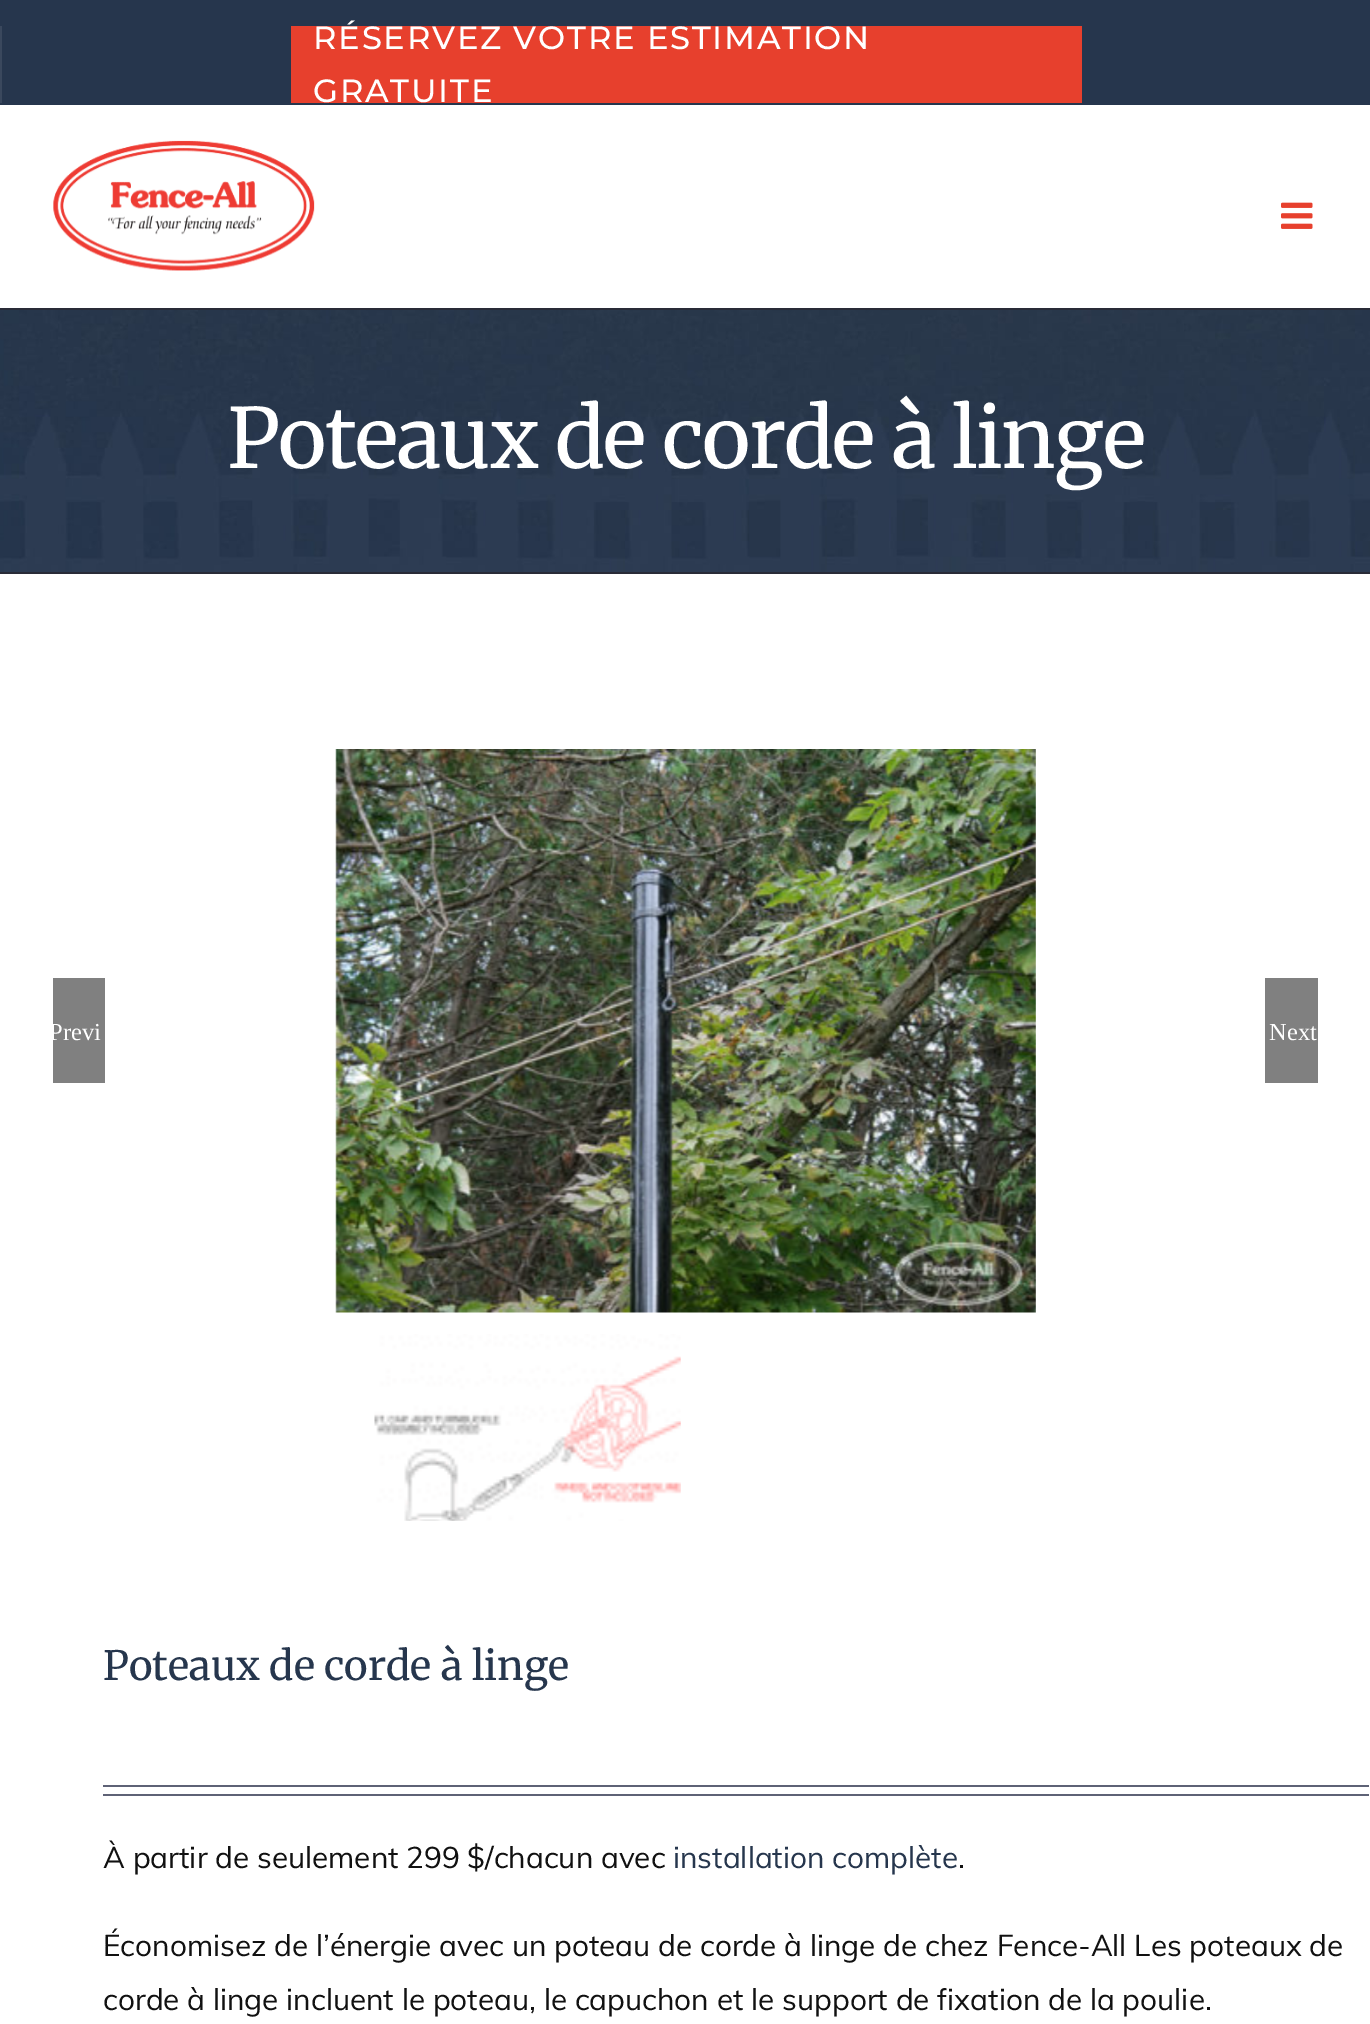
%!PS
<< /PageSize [1370 2024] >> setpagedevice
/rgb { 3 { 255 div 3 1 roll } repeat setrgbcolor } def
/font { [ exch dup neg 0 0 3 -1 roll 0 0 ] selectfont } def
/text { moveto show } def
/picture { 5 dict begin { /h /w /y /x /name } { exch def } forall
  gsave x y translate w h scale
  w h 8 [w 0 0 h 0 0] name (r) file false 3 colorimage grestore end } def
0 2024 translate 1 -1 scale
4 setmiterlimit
255 255 255 rgb
0 0 1370 2024 rectfill
38 54 77 rgb
0 0 1370 105 rectfill
58 72 93 rgb
0 26 2 77 rectfill
231 64 45 rgb
291 26 791 77 rectfill
(img_01.rgb) 53 140 262 131 picture
(img_02.rgb) 1281 202 32 27 picture
(img_03.rgb) 0 310 1370 262 picture
41 43 55 rgb
0 308 1370 2 rectfill
0 572 1370 2 rectfill
(img_04.rgb) 335 749 701 564 picture
128 128 128 rgb
53 978 52 105 rectfill
1265 978 53 105 rectfill
(img_05.rgb) 374 1334 307 187 picture
94 98 118 rgb
103 1785 1266 2 rectfill
103 1794 1266 2 rectfill
/Montserrat-Thin 32.25 font
255 255 255 rgb
313 49 moveto 1.75 0 (RÉSERVEZ VOTRE ESTIMATION) ashow
313 102 moveto 1.75 0 (GRATUITE) ashow
/Merriweather-Regular 82.75 font
227 468 moveto -1.75 0 (Poteaux de corde à linge) ashow
gsave
53 978 52 105 rectclip
/LiberationSerif-Regular 24.5 font
(Previ) 49 1040 text
grestore
/LiberationSerif-Regular 24.5 font
(Next) 1269 1040 text
/Merriweather-Regular 40.25 font
38 54 77 rgb
(Poteaux de corde à linge) 103 1680 text
/Muli-Regular 29.75 font
17 17 17 rgb
(À partir de seulement 299 $/chacun avec) 103 1868 text
38 54 77 rgb
(installation complète) 673 1868 text
17 17 17 rgb
(.) 958 1868 text
(Économisez de l’énergie avec un poteau de corde à linge de chez Fence-All Les poteaux de) 103 1956 text
(corde à linge incluent le poteau, le capuchon et le support de fixation de la poulie.) 103 2010 text
showpage
